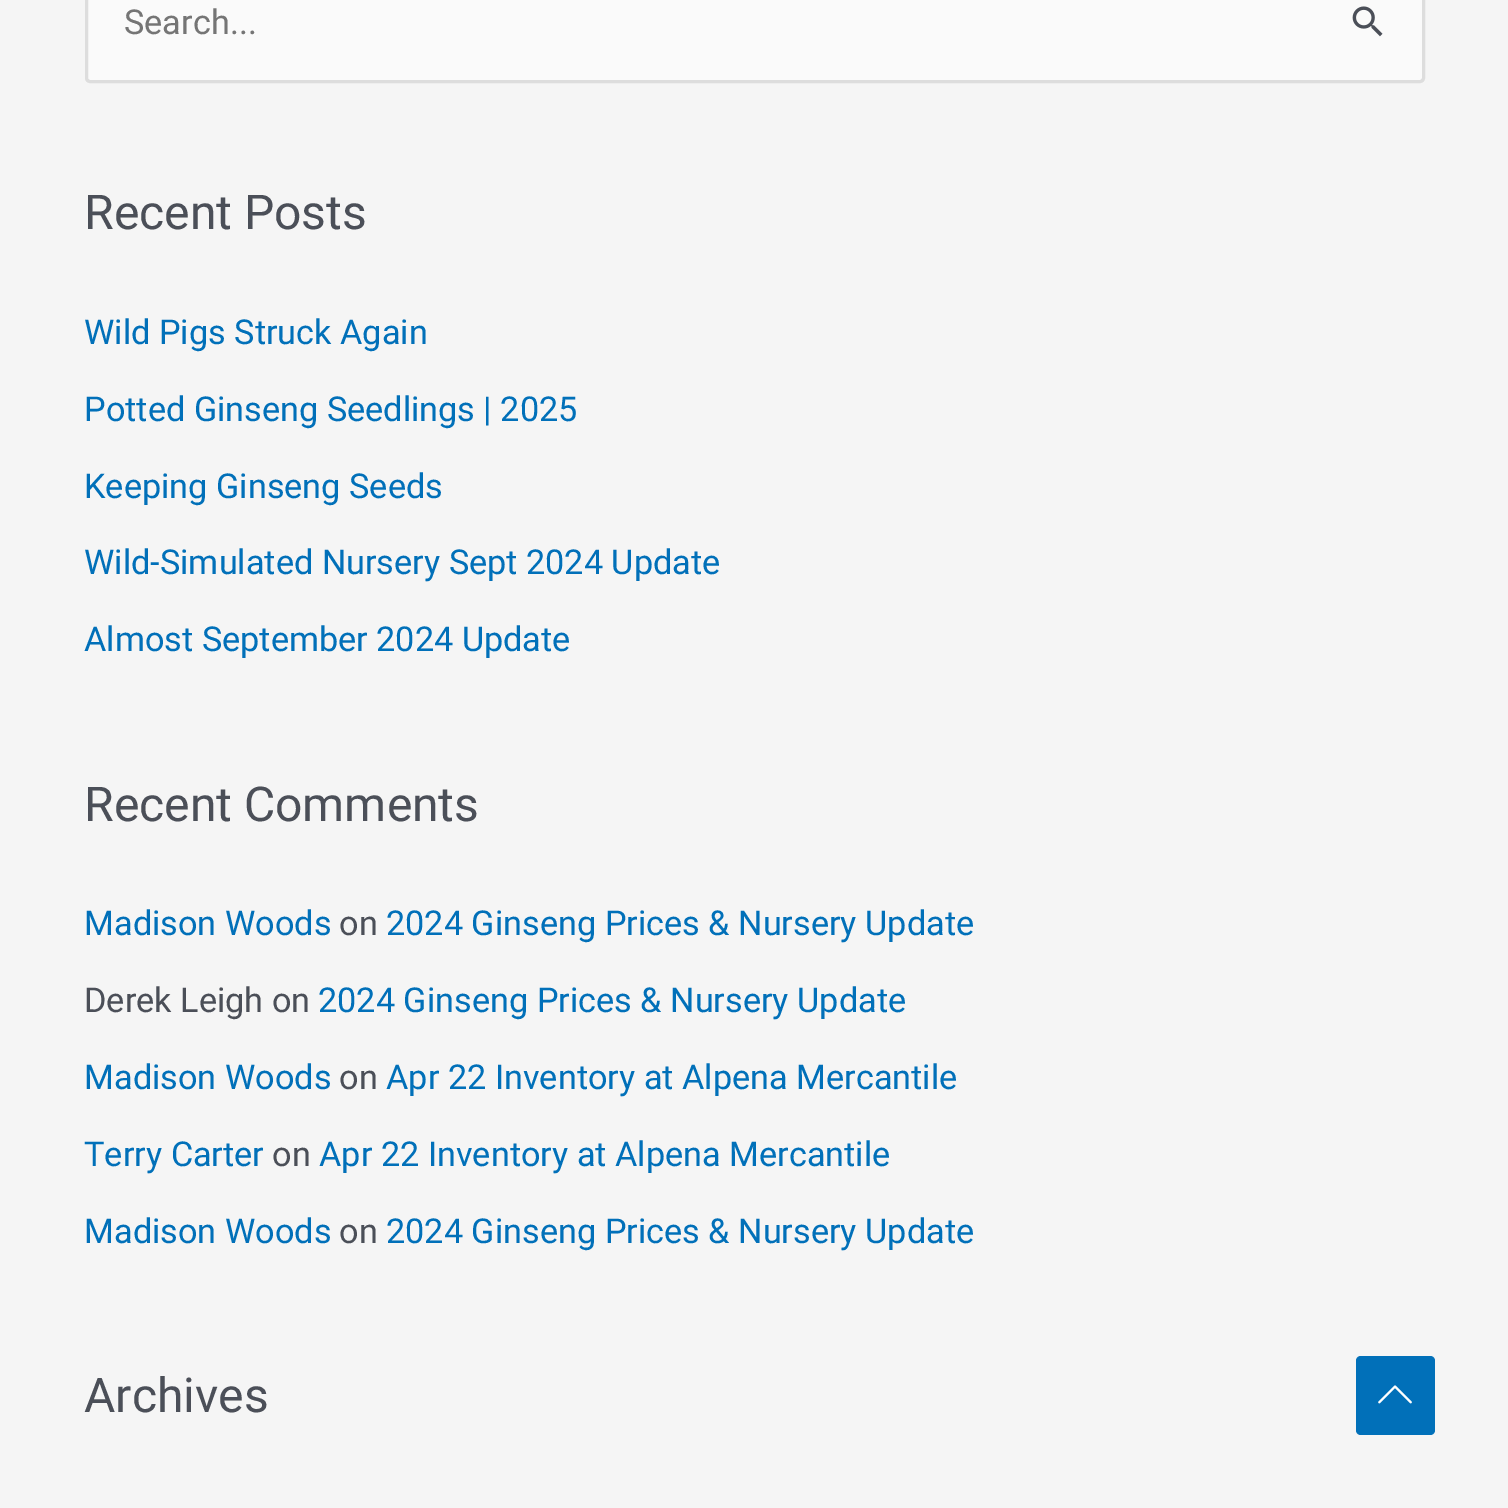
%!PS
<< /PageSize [1508 1508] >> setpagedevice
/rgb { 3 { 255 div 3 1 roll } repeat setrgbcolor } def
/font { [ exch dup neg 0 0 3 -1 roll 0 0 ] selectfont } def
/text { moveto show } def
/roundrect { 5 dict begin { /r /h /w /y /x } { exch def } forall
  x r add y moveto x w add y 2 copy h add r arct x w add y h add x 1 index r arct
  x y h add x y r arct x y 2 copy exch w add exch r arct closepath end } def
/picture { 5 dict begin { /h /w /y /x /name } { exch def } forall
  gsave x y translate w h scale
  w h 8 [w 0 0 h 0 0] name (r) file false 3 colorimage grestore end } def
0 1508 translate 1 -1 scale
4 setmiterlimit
245 245 245 rgb
0 0 1508 1508 rectfill
250 250 250 rgb
86.5 -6.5 1337 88 3.5 roundrect gsave fill grestore
221 221 221 rgb
3 setlinewidth
stroke
(img_01.rgb) 1352 6 31 31 picture
1 112 185 rgb
1430 1435 moveto -69 0 rlineto -3 0 -5 -2 -5 -5 rcurveto 0 -69 rlineto 0 -3 2 -5 5 -5 rcurveto 69 0 rlineto 3 0 5 2 5 5 rcurveto 0 69 rlineto 0 3 -2 5 -5 5 rcurveto closepath fill
(img_02.rgb) 1378 1385 34 19 picture
/Roboto-Regular 34.25 font
117 117 117 rgb
(Search...) 124 34 text
/Roboto-Regular 48 font
75 79 88 rgb
(Recent Posts) 84 229 text
/Roboto-Regular 34.25 font
1 112 185 rgb
(Wild Pigs Struck Again) 84 344 text
(Potted Ginseng Seedlings | 2025) 84 421 text
(Keeping Ginseng Seeds) 84 498 text
(Wild-Simulated Nursery Sept 2024 Update) 84 574 text
(Almost September 2024 Update) 84 651 text
/Roboto-Regular 48 font
75 79 88 rgb
(Recent Comments) 84 821 text
/Roboto-Regular 34.25 font
1 112 185 rgb
(Madison Woods) 84 935 text
75 79 88 rgb
(on) 339 935 text
1 112 185 rgb
(2024 Ginseng Prices & Nursery Update) 386 935 text
75 79 88 rgb
(Derek Leigh on) 84 1012 text
1 112 185 rgb
(2024 Ginseng Prices & Nursery Update) 318 1012 text
(Madison Woods) 84 1089 text
75 79 88 rgb
(on) 339 1089 text
1 112 185 rgb
(Apr 22 Inventory at Alpena Mercantile) 386 1089 text
(Terry Carter) 84 1166 text
75 79 88 rgb
(on) 272 1166 text
1 112 185 rgb
(Apr 22 Inventory at Alpena Mercantile) 319 1166 text
(Madison Woods) 84 1243 text
75 79 88 rgb
(on) 339 1243 text
1 112 185 rgb
(2024 Ginseng Prices & Nursery Update) 386 1243 text
/Roboto-Regular 48 font
75 79 88 rgb
(Archives) 84 1412 text
showpage
